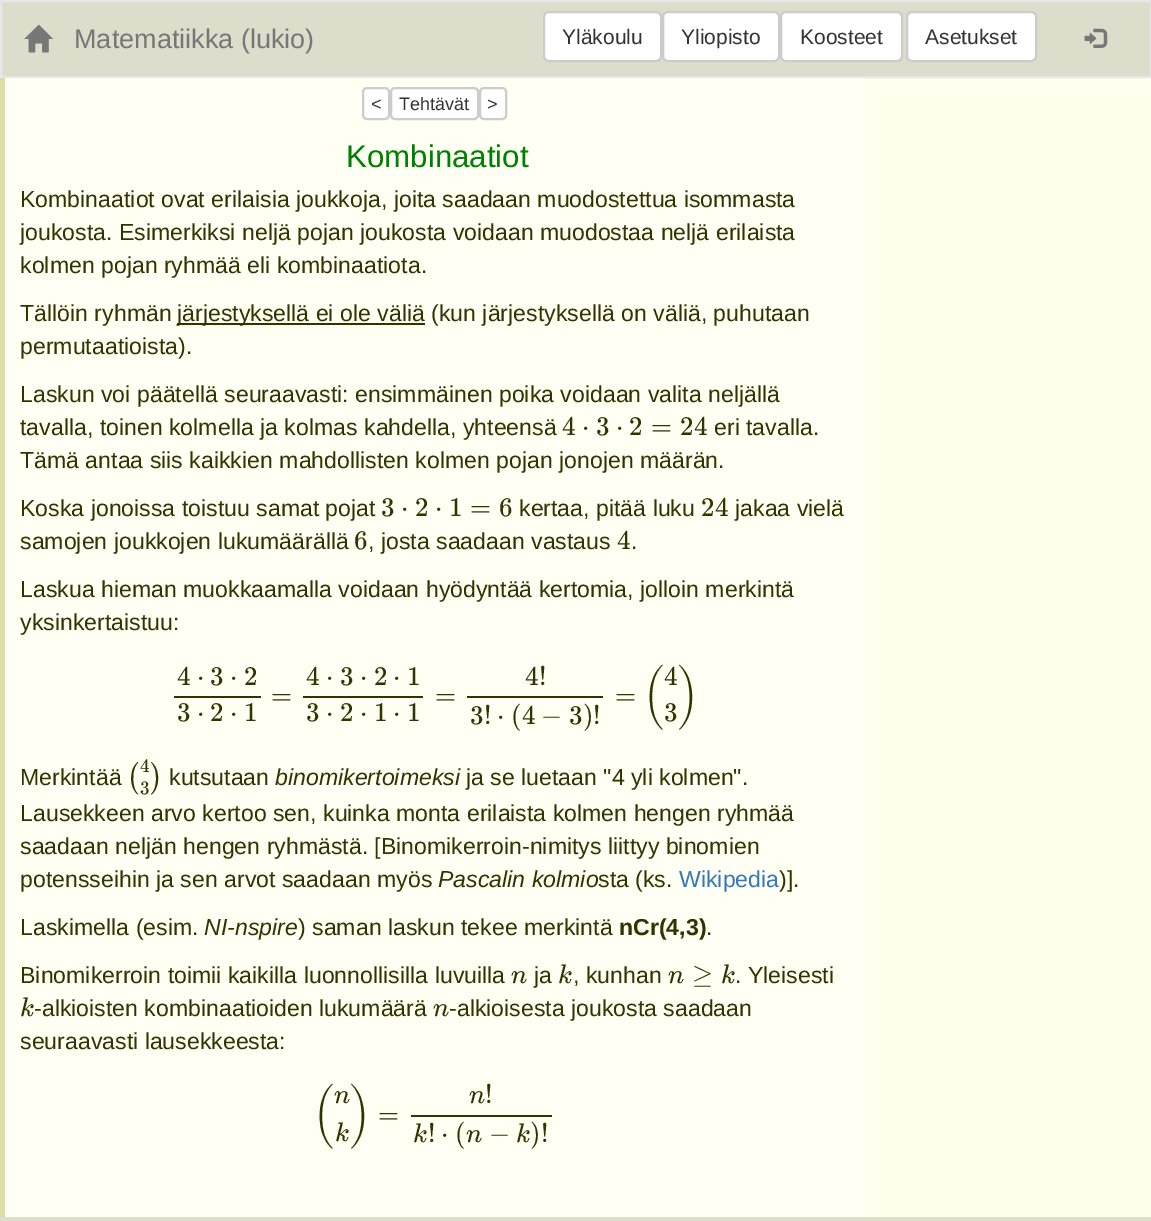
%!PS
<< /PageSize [1151 1221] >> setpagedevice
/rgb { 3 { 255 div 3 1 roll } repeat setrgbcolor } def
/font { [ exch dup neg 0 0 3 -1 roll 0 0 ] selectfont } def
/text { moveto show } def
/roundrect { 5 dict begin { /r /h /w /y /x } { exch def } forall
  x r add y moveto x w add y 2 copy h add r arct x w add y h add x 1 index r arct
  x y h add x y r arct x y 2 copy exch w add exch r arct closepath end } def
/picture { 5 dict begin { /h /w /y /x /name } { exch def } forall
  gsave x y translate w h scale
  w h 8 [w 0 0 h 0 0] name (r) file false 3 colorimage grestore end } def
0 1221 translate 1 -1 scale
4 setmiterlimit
255 255 238 rgb
0 0 1151 1221 rectfill
221 221 204 rgb
1 1 moveto 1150 0 rlineto 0 76 rlineto -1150 0 rlineto closepath gsave fill grestore
231 231 231 rgb
2 setlinewidth
stroke
(img_01.rgb) 24 24 29 29 picture
255 255 255 rgb
544 12 117 49 5 roundrect gsave fill grestore
204 204 204 rgb
stroke
255 255 255 rgb
663 12 116 49 5 roundrect gsave fill grestore
204 204 204 rgb
stroke
255 255 255 rgb
781 12 121 49 5 roundrect gsave fill grestore
204 204 204 rgb
stroke
255 255 255 rgb
907 12 129 49 5 roundrect gsave fill grestore
204 204 204 rgb
stroke
(img_02.rgb) 1084 28 24 20 picture
255 255 244 rgb
5 78 859 1139 rectfill
221 221 170 rgb
0 78 5 1139 rectfill
255 255 255 rgb
363 88 26 31 4 roundrect gsave fill grestore
204 204 204 rgb
stroke
255 255 255 rgb
391 88 87 31 4 roundrect gsave fill grestore
204 204 204 rgb
stroke
255 255 255 rgb
480 88 26 31 4 roundrect gsave fill grestore
204 204 204 rgb
stroke
51 51 0 rgb
177 323 248 2 rectfill
174 696 87 2 rectfill
303 696 120 2 rectfill
467 696 136 2 rectfill
411 1115 141 2 rectfill
221 221 204 rgb
0 1217 1151 4 rectfill
/LiberationSans-Regular 27 font
119 119 119 rgb
(Matematiikka \(lukio\)) 74 48 text
/LiberationSans-Regular 21 font
51 51 51 rgb
(Yläkoulu) 562 44 text
(Yliopisto) 681 44 text
(Koosteet) 800 44 text
(Asetukset) 925 44 text
/LiberationSans-Regular 18 font
(<) 371 110 text
(Tehtävät) 399 110 text
(>) 487 110 text
/LiberationSans-Regular 31.25 font
0 128 0 rgb
(Kombinaatiot) 346 167 text
/LiberationSans-Regular 23.1 font
51 51 0 rgb
(Kombinaatiot ovat erilaisia joukkoja, joita saadaan muodostettua isommasta) 20 207 text
(joukosta. Esimerkiksi neljä pojan joukosta voidaan muodostaa neljä erilaista) 20 240 text
(kolmen pojan ryhmää eli kombinaatiota.) 20 273 text
(Tällöin ryhmän) 20 321 text
(järjestyksellä ei ole väliä \(kun järjestyksellä on väliä, puhutaan) 177 321 text
(permutaatioista\).) 20 354 text
(Laskun voi päätellä seuraavasti: ensimmäinen poika voidaan valita neljällä) 20 402 text
(tavalla, toinen kolmella ja kolmas kahdella, yhteensä) 20 435 text
/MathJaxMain-Regular 27 font
(4) 562 435 text
(⋅) 582 435 text
(3) 596 435 text
(⋅) 616 435 text
(2) 629 435 text
(=) 651 435 text
(24) 680 435 text
/LiberationSans-Regular 23.1 font
(eri tavalla.) 714 435 text
(Tämä antaa siis kaikkien mahdollisten kolmen pojan jonojen määrän.) 20 468 text
(Koska jonoissa toistuu samat pojat) 20 516 text
/MathJaxMain-Regular 27 font
(3) 381 516 text
(⋅) 401 516 text
(2) 415 516 text
(⋅) 435 516 text
(1) 449 516 text
(=) 470 516 text
(6) 499 516 text
/LiberationSans-Regular 23.1 font
(kertaa, pitää luku) 519 516 text
/MathJaxMain-Regular 27 font
(24) 701 516 text
/LiberationSans-Regular 23.1 font
(jakaa vielä) 735 516 text
(samojen joukkojen lukumäärällä) 20 549 text
/MathJaxMain-Regular 27 font
(6) 354 549 text
/LiberationSans-Regular 23.1 font
(, josta saadaan vastaus) 368 549 text
/MathJaxMain-Regular 27 font
(4) 617 549 text
/LiberationSans-Regular 23.1 font
(.) 631 549 text
(Laskua hieman muokkaamalla voidaan hyödyntää kertomia, jolloin merkintä) 20 597 text
(yksinkertaistuu:) 20 630 text
/MathJaxMain-Regular 27 font
(4) 177 685 text
(⋅) 197 685 text
(3) 210 685 text
(⋅) 230 685 text
(2) 244 685 text
(3) 177 721 text
(⋅) 197 721 text
(2) 210 721 text
(⋅) 230 721 text
(1) 244 721 text
(=) 271 704 text
(4) 306 685 text
(⋅) 326 685 text
(3) 340 685 text
(⋅) 360 685 text
(2) 374 685 text
(⋅) 393 685 text
(1) 407 685 text
(3) 306 721 text
(⋅) 326 721 text
(2) 340 721 text
(⋅) 360 721 text
(1) 374 721 text
(⋅) 393 721 text
(1) 407 721 text
(=) 435 704 text
(4!) 525 685 text
(3!) 470 724 text
(⋅) 497 724 text
(\(4) 511 724 text
(−) 541 724 text
(3\)!) 569 724 text
(=) 615 704 text
/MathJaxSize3-Regular 27 font
(\() 644 704 text
/MathJaxMain-Regular 27 font
(4) 664 685 text
(3) 664 721 text
/MathJaxSize3-Regular 27 font
(\)) 678 704 text
/LiberationSans-Regular 23.1 font
(Merkintää) 20 785 text
/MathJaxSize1-Regular 27 font
(\() 127 785 text
/MathJaxMain-Regular 19 font
(4) 140 772 text
(3) 140 794 text
/MathJaxSize1-Regular 27 font
(\)) 150 785 text
/LiberationSans-Regular 23.1 font
(kutsutaan) 169 785 text
/LiberationSans-Italic 23.1 font
(binomikertoimeksi) 275 785 text
/LiberationSans-Regular 23.1 font
(ja se luetaan "4 yli kolmen".) 466 785 text
(Lausekkeen arvo kertoo sen, kuinka monta erilaista kolmen hengen ryhmää) 20 821 text
(saadaan neljän hengen ryhmästä. [Binomikerroin-nimitys liittyy binomien) 20 854 text
(potensseihin ja sen arvot saadaan myös) 20 887 text
/LiberationSans-Italic 23.1 font
(Pascalin kolmio) 438 887 text
/LiberationSans-Regular 23.1 font
(sta \(ks.) 598 887 text
51 122 183 rgb
(Wikipedia) 679 887 text
51 51 0 rgb
(\)].) 779 887 text
(Laskimella \(esim.) 20 935 text
/LiberationSans-Italic 23.1 font
(NI-nspire) 204 935 text
/LiberationSans-Regular 23.1 font
(\) saman laskun tekee merkintä) 298 935 text
/LiberationSans-Bold 23.1 font
(nCr\(4,3\)) 619 935 text
/LiberationSans-Regular 23.1 font
(.) 706 935 text
(Binomikerroin toimii kaikilla luonnollisilla luvuilla) 20 983 text
/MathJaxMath-Italic 27 font
(n) 511 983 text
/LiberationSans-Regular 23.1 font
(ja) 534 983 text
/MathJaxMath-Italic 27 font
(k) 558 983 text
/LiberationSans-Regular 23.1 font
(, kunhan) 573 983 text
/MathJaxMath-Italic 27 font
(n) 668 983 text
/MathJaxMain-Regular 27 font
(≥) 692 983 text
/MathJaxMath-Italic 27 font
(k) 721 983 text
/LiberationSans-Regular 23.1 font
(. Yleisesti) 735 983 text
/MathJaxMath-Italic 27 font
(k) 20 1016 text
/LiberationSans-Regular 23.1 font
(-alkioisten kombinaatioiden lukumäärä) 34 1016 text
/MathJaxMath-Italic 27 font
(n) 433 1016 text
/LiberationSans-Regular 23.1 font
(-alkioisesta joukosta saadaan) 449 1016 text
(seuraavasti lausekkeesta:) 20 1049 text
/MathJaxSize3-Regular 27 font
(\() 314 1123 text
/MathJaxMath-Italic 27 font
(n) 334 1103 text
(k) 335 1141 text
/MathJaxSize3-Regular 27 font
(\)) 350 1123 text
/MathJaxMain-Regular 27 font
(=) 378 1123 text
/MathJaxMath-Italic 27 font
(n) 469 1103 text
/MathJaxMain-Regular 27 font
(!) 485 1103 text
/MathJaxMath-Italic 27 font
(k) 413 1142 text
/MathJaxMain-Regular 27 font
(!) 428 1142 text
(⋅) 441 1142 text
(\() 455 1142 text
/MathJaxMath-Italic 27 font
(n) 466 1142 text
/MathJaxMain-Regular 27 font
(−) 489 1142 text
/MathJaxMath-Italic 27 font
(k) 516 1142 text
/MathJaxMain-Regular 27 font
(\)!) 530 1142 text
showpage
